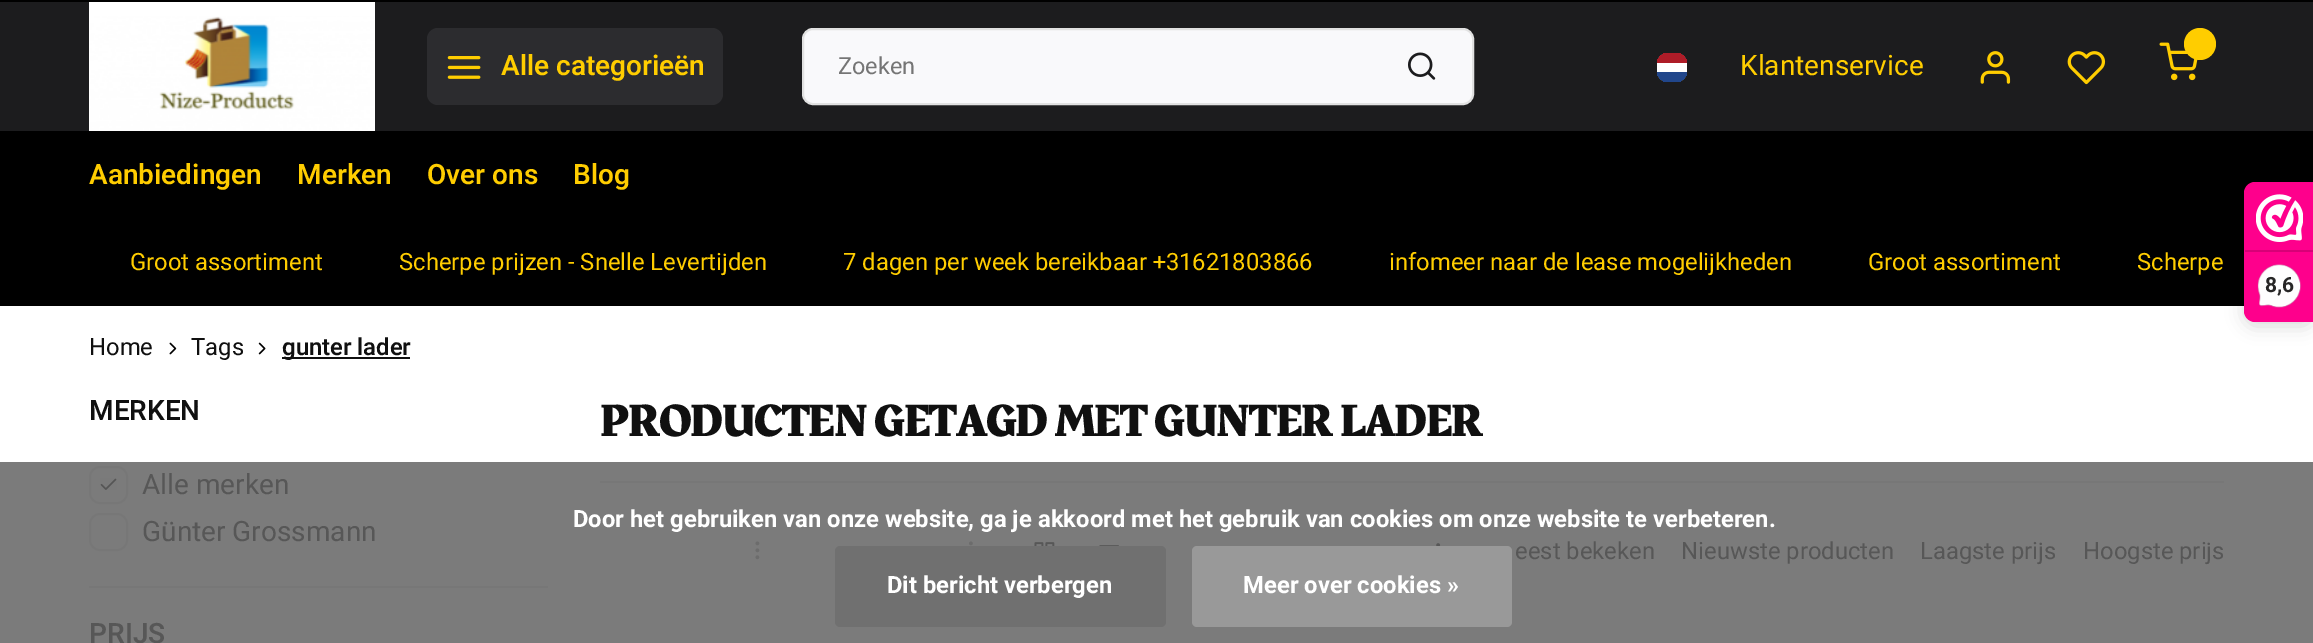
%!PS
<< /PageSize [2313 643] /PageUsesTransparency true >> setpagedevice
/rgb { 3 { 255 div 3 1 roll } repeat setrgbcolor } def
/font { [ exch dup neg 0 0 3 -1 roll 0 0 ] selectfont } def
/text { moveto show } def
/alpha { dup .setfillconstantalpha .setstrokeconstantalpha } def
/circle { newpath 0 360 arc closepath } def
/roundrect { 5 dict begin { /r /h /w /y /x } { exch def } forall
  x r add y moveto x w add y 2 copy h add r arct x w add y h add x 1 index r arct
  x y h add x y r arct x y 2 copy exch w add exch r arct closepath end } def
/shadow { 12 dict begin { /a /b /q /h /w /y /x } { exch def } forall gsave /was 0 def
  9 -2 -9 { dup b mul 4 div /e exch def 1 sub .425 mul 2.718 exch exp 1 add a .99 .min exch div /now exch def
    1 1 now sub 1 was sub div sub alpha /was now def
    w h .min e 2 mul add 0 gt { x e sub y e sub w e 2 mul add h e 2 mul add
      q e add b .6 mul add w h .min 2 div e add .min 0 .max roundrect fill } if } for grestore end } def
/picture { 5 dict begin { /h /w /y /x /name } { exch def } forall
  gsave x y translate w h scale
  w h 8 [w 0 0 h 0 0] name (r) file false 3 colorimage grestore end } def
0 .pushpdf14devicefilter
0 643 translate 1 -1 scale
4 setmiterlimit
255 255 255 rgb
0 0 2313 643 rectfill
123 123 123 rgb
0 462 2313 181 rectfill
0 0 0 rgb
0 0 2313 2 rectfill
0 219 2244 87 rectfill
0 11 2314 217 0 9 0.05 shadow
28 28 30 rgb
0 2 2313 129 rectfill
255 255 255 rgb
89 2 286 129 rectfill
(img_01.rgb) 89 16 286 115 picture
44 44 47 rgb
427 28 296 77 11 roundrect fill
(img_02.rgb) 447 56 34 23 picture
249 249 251 rgb
803 29 670 75 10 roundrect gsave fill grestore
225 225 225 rgb
2 setlinewidth
stroke
(img_03.rgb) 1408 52 28 28 picture
255 255 255 rgb
1657 53 30 29 11 roundrect fill
gsave
1657 53 30 29 11 roundrect clip newpath
33 70 139 rgb
1657 72 30 10 rectfill
174 28 40 rgb
1657 53 30 10 rectfill
grestore
(img_04.rgb) 1980 51 31 33 picture
(img_05.rgb) 2067 51 39 34 picture
(img_06.rgb) 2159 42 39 39 picture
255 205 0 rgb
2200 44 16 circle fill
0 0 0 rgb
0 131 2313 88 rectfill
(img_07.rgb) 169 342 8 13 picture
(img_08.rgb) 258 342 8 13 picture
16 16 16 rgb
282 357 128 2 rectfill
119 119 119 rgb
89 586 459 2 rectfill
90 467 37 36 10 roundrect stroke
(img_09.rgb) 100 478 17 12 picture
90 514 37 36 10 roundrect stroke
600 481 1624 2 rectfill
(img_10.rgb) 755 541 5 19 picture
(img_11.rgb) 969 541 4 5 picture
(img_12.rgb) 1034 542 21 4 picture
(img_13.rgb) 1099 545 20 1 picture
(img_14.rgb) 1436 543 5 3 picture
0 0 0 rgb
2244 186 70 140 11 9 0.15 shadow
254 0 140 rgb
2255 182 moveto 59 0 rlineto 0 140 rlineto -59 0 rlineto -6 0 -11 -5 -11 -11 rcurveto 0 -118 rlineto 0 -6 5 -11 11 -11 rcurveto closepath fill
(img_15.rgb) 2256 194 47 48 picture
216 0 119 rgb
2245 250 68 2 rectfill
(img_16.rgb) 2257 264 45 44 picture
112 112 112 rgb
835 546 331 81 5 roundrect fill
153 153 153 rgb
1192 546 320 81 5 roundrect fill
/Heebo-SemiBold 28 font
255 205 0 rgb
(Alle categorieën) 501 75 text
/Heebo-Regular 23.5 font
117 117 117 rgb
(Zoeken) 838 74 text
/Heebo-Regular 28 font
255 205 0 rgb
(Klantenservice) 1740 75 text
/Heebo-SemiBold 28 font
(Aanbiedingen) 89 184 text
(Merken) 297 184 text
(Over ons) 427 184 text
(Blog) 573 184 text
/Heebo-Regular 23.8 font
(Groot assortiment) 130 270 text
(Scherpe prijzen - Snelle Levertijden) 399 270 text
(7 dagen per week bereikbaar +31621803866) 843 270 text
(infomeer naar de lease mogelijkheden) 1389 270 text
(Groot assortiment) 1868 270 text
(Scherpe) 2137 270 text
16 16 16 rgb
(Home) 89 355 text
(Tags) 191 355 text
/Heebo-SemiBold 23.8 font
(gunter lader) 282 355 text
/Heebo-SemiBold 28 font
(MERKEN) 89 420 text
/Heebo-Regular 28 font
87 87 87 rgb
(Alle merken) 142 494 text
(Günter Grossmann) 142 541 text
/Heebo-SemiBold 28 font
(PRIJS) 89 643 text
/Rakkas-Bold 44.75 font
16 16 16 rgb
(PRODUCTEN GETAGD MET GUNTER LADER) 600 436 text
/Heebo-Regular 23.8 font
87 87 87 rgb
(eest bekeken) 1515 559 text
(Nieuwste producten) 1681 559 text
(Laagste prijs) 1920 559 text
(Hoogste prijs) 2083 559 text
/Roboto-Bold 21 font
39 38 38 rgb
(8,6) 2265 292 text
/Heebo-Bold 23.8 font
255 255 255 rgb
(Door het gebruiken van onze website, ga je akkoord met het gebruik van cookies om onze website te verbeteren.) 573 527 text
(Dit bericht verbergen) 887 593 text
(Meer over cookies ») 1243 593 text
.poppdf14devicefilter showpage
